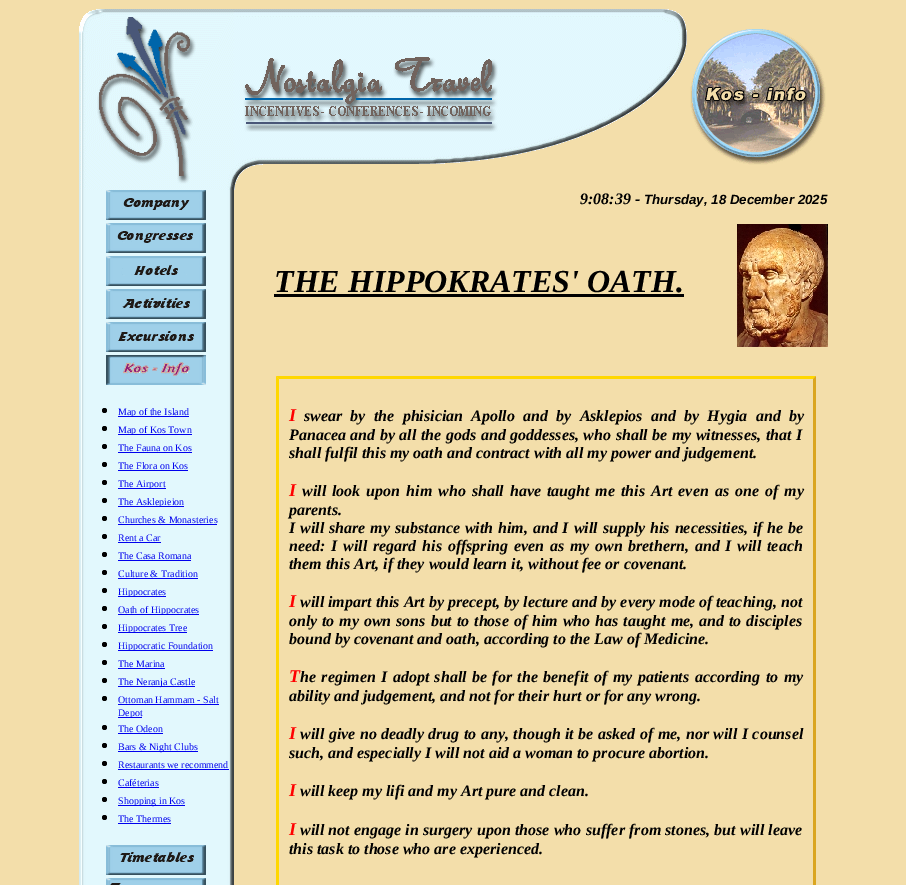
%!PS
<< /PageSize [906 885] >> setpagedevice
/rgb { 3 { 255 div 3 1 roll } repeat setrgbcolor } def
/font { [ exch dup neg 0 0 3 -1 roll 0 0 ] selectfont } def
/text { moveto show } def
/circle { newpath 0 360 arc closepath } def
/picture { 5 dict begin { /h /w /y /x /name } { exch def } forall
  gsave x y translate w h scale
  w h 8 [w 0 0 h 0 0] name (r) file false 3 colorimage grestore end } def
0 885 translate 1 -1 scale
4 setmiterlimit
243 222 170 rgb
0 0 906 885 rectfill
(img_01.rgb) 79 9 155 181 picture
(img_02.rgb) 234 9 453 181 picture
(img_03.rgb) 690 29 136 136 picture
(img_04.rgb) 79 220 155 3 picture
(img_05.rgb) 79 190 155 30 picture
(img_06.rgb) 106 190 100 30 picture
(img_07.rgb) 737 224 91 123 picture
0 0 0 rgb
274 294 410 3 rectfill
255 215 0 rgb
276 376 moveto 540 0 rlineto -3 3 rlineto -534 0 rlineto closepath fill
218 165 32 rgb
816 376 moveto 0 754 rlineto -3 -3 rlineto 0 -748 rlineto closepath fill
255 215 0 rgb
276 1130 moveto 0 -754 rlineto 3 3 rlineto 0 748 rlineto closepath fill
(img_05.rgb) 79 223 155 30 picture
(img_08.rgb) 106 223 100 30 picture
(img_04.rgb) 79 253 155 3 picture
(img_05.rgb) 79 256 155 30 picture
(img_09.rgb) 106 256 100 30 picture
(img_04.rgb) 79 286 155 3 picture
(img_05.rgb) 79 289 155 30 picture
(img_10.rgb) 106 289 100 30 picture
(img_04.rgb) 79 319 155 3 picture
(img_05.rgb) 79 322 155 30 picture
(img_11.rgb) 106 322 100 30 picture
(img_04.rgb) 79 352 155 3 picture
(img_12.rgb) 79 355 155 487 picture
(img_13.rgb) 106 355 100 30 picture
0 0 0 rgb
104.5 410.5 2.5 circle fill
0 0 238 rgb
118 416 71 1 rectfill
0 0 0 rgb
104.5 428.5 2.5 circle fill
0 0 238 rgb
118 434 74 1 rectfill
0 0 0 rgb
104.5 446.5 2.5 circle fill
0 0 238 rgb
118 452 74 1 rectfill
0 0 0 rgb
104.5 464.5 2.5 circle fill
0 0 238 rgb
118 470 70 1 rectfill
0 0 0 rgb
104.5 482.5 2.5 circle fill
0 0 238 rgb
118 488 48 1 rectfill
0 0 0 rgb
104.5 500.5 2.5 circle fill
0 0 238 rgb
118 506 66 1 rectfill
0 0 0 rgb
104.5 518.5 2.5 circle fill
0 0 238 rgb
118 524 99 1 rectfill
0 0 0 rgb
104.5 536.5 2.5 circle fill
0 0 238 rgb
118 542 43 1 rectfill
0 0 0 rgb
104.5 554.5 2.5 circle fill
0 0 238 rgb
118 560 73 1 rectfill
0 0 0 rgb
104.5 572.5 2.5 circle fill
0 0 238 rgb
118 578 80 1 rectfill
0 0 0 rgb
104.5 590.5 2.5 circle fill
0 0 238 rgb
118 596 48 1 rectfill
0 0 0 rgb
104.5 608.5 2.5 circle fill
0 0 238 rgb
118 614 81 1 rectfill
0 0 0 rgb
104.5 626.5 2.5 circle fill
0 0 238 rgb
118 632 69 1 rectfill
0 0 0 rgb
104.5 644.5 2.5 circle fill
0 0 238 rgb
118 650 95 1 rectfill
0 0 0 rgb
104.5 662.5 2.5 circle fill
0 0 238 rgb
118 668 47 1 rectfill
0 0 0 rgb
104.5 680.5 2.5 circle fill
0 0 238 rgb
118 686 77 1 rectfill
0 0 0 rgb
104.5 698.5 2.5 circle fill
0 0 238 rgb
118 704 101 1 rectfill
118 717 24 1 rectfill
0 0 0 rgb
104.5 727.5 2.5 circle fill
0 0 238 rgb
118 733 45 1 rectfill
0 0 0 rgb
104.5 745.5 2.5 circle fill
0 0 238 rgb
118 751 80 1 rectfill
0 0 0 rgb
104.5 763.5 2.5 circle fill
0 0 238 rgb
118 769 111 1 rectfill
0 0 0 rgb
104.5 781.5 2.5 circle fill
0 0 238 rgb
118 787 41 1 rectfill
0 0 0 rgb
104.5 799.5 2.5 circle fill
0 0 238 rgb
118 805 67 1 rectfill
0 0 0 rgb
104.5 817.5 2.5 circle fill
0 0 238 rgb
118 823 53 1 rectfill
(img_04.rgb) 79 842 155 3 picture
(img_05.rgb) 79 845 155 30 picture
(img_14.rgb) 106 845 100 30 picture
(img_04.rgb) 79 875 155 3 picture
(img_15.rgb) 79 878 155 7 picture
(img_16.rgb) 106 878 100 7 picture
/LiberationSerif-BoldItalic 16 font
0 0 0 rgb
(9:08:39 -) 580 204 text
/LiberationSans-BoldItalic 13.3 font
(Thursday, 18 December 2025) 644 204 text
/LiberationSerif-BoldItalic 32 font
(THE HIPPOKRATES' OATH.) 274 292 text
/LiberationSerif-BoldItalic 18 font
255 0 0 rgb
(I) 289 421 text
/LiberationSerif-BoldItalic 16 font
0 0 0 rgb
304 421 moveto 4.25 0 32 (swear by the phisician Apollo and by Asklepios and by Hygia and by) widthshow
289 440 moveto 0.5 0 32 (Panacea and by all) widthshow
421 440 moveto 0.5 0 32 (the gods and goddesses, who shall be my witnesses, that I) widthshow
(shall fulfil this my oath and contract with all my power and judgement.) 289 458 text
/LiberationSerif-BoldItalic 18 font
255 0 0 rgb
(I) 289 496 text
/LiberationSerif-BoldItalic 16 font
0 0 0 rgb
302 496 moveto 2 0 32 (will look upon him who shall have taught me this Art even as one of my) widthshow
(parents.) 289 515 text
289 533 moveto 0.9 0 32 (I will share my substance with him, and I will supply his necessities, if he be) widthshow
289 551 moveto 1.75 0 32 (need: I will regard his offspring even as my own) widthshow
628 551 moveto 1.75 0 32 (brethern, and I will teach) widthshow
(them this Art, if they would learn it, without fee or covenant.) 289 569 text
/LiberationSerif-BoldItalic 18 font
255 0 0 rgb
(I) 289 607 text
/LiberationSerif-BoldItalic 16 font
0 0 0 rgb
(will impart this Art by precept, by lecture and by every mode of teaching, not) 300 607 text
(only) 289 626 text
322 626 moveto 0.9 0 32 (to my own sons but to those of him who has taught me, and to disciples) widthshow
(bound by covenant and oath, according to the Law of Medicine.) 289 644 text
/LiberationSerif-BoldItalic 18 font
255 0 0 rgb
(T) 289 682 text
/LiberationSerif-BoldItalic 16 font
0 0 0 rgb
300 682 moveto 1.4 0 32 (he regimen I adopt shall be for the benefit of my patients according to my) widthshow
(ability and judgement, and not for their hurt or for any wrong.) 289 701 text
/LiberationSerif-BoldItalic 18 font
255 0 0 rgb
(I) 289 739 text
/LiberationSerif-BoldItalic 16 font
0 0 0 rgb
300 739 moveto 0.5 0 32 (will give no deadly drug to any, though it be asked of me, nor will I counsel) widthshow
(such, and especially I will not aid a woman to procure abortion.) 289 758 text
/LiberationSerif-BoldItalic 18 font
255 0 0 rgb
(I) 289 796 text
/LiberationSerif-BoldItalic 16 font
0 0 0 rgb
(will keep my lifi and my Art pure and clean.) 300 796 text
/LiberationSerif-BoldItalic 18 font
255 0 0 rgb
(I) 289 835 text
/LiberationSerif-BoldItalic 16 font
0 0 0 rgb
300 835 moveto 0.25 0 32 (will not engage in surgery upon those who suffer from stones, but will leave) widthshow
(this task to those who are experienced.) 289 854 text
/LiberationSerif-Regular 10 font
0 0 238 rgb
(Map of the Island) 118 415 text
(Map of Kos Town) 118 433 text
(The Fauna on Kos) 118 451 text
(The Flora on Kos) 118 469 text
(The Airport) 118 487 text
(The Asklepieion) 118 505 text
(Churches & Monasteries) 118 523 text
(Rent a Car) 118 541 text
(The Casa Romana) 118 559 text
(Culture & Tradition) 118 577 text
(Hippocrates) 118 595 text
(Oath of Hippocrates) 118 613 text
(Hippocrates Tree) 118 631 text
(Hippocratic Foundation) 118 649 text
(The Marina) 118 667 text
(The Neranja Castle) 118 685 text
(Ottoman Hammam - Salt) 118 703 text
(Depot) 118 716 text
(The Odeon) 118 732 text
(Bars & Night Clubs) 118 750 text
(Restaurants we recommend) 118 768 text
(Caféterias) 118 786 text
(Shopping in Kos) 118 804 text
(The Thermes) 118 822 text
showpage
